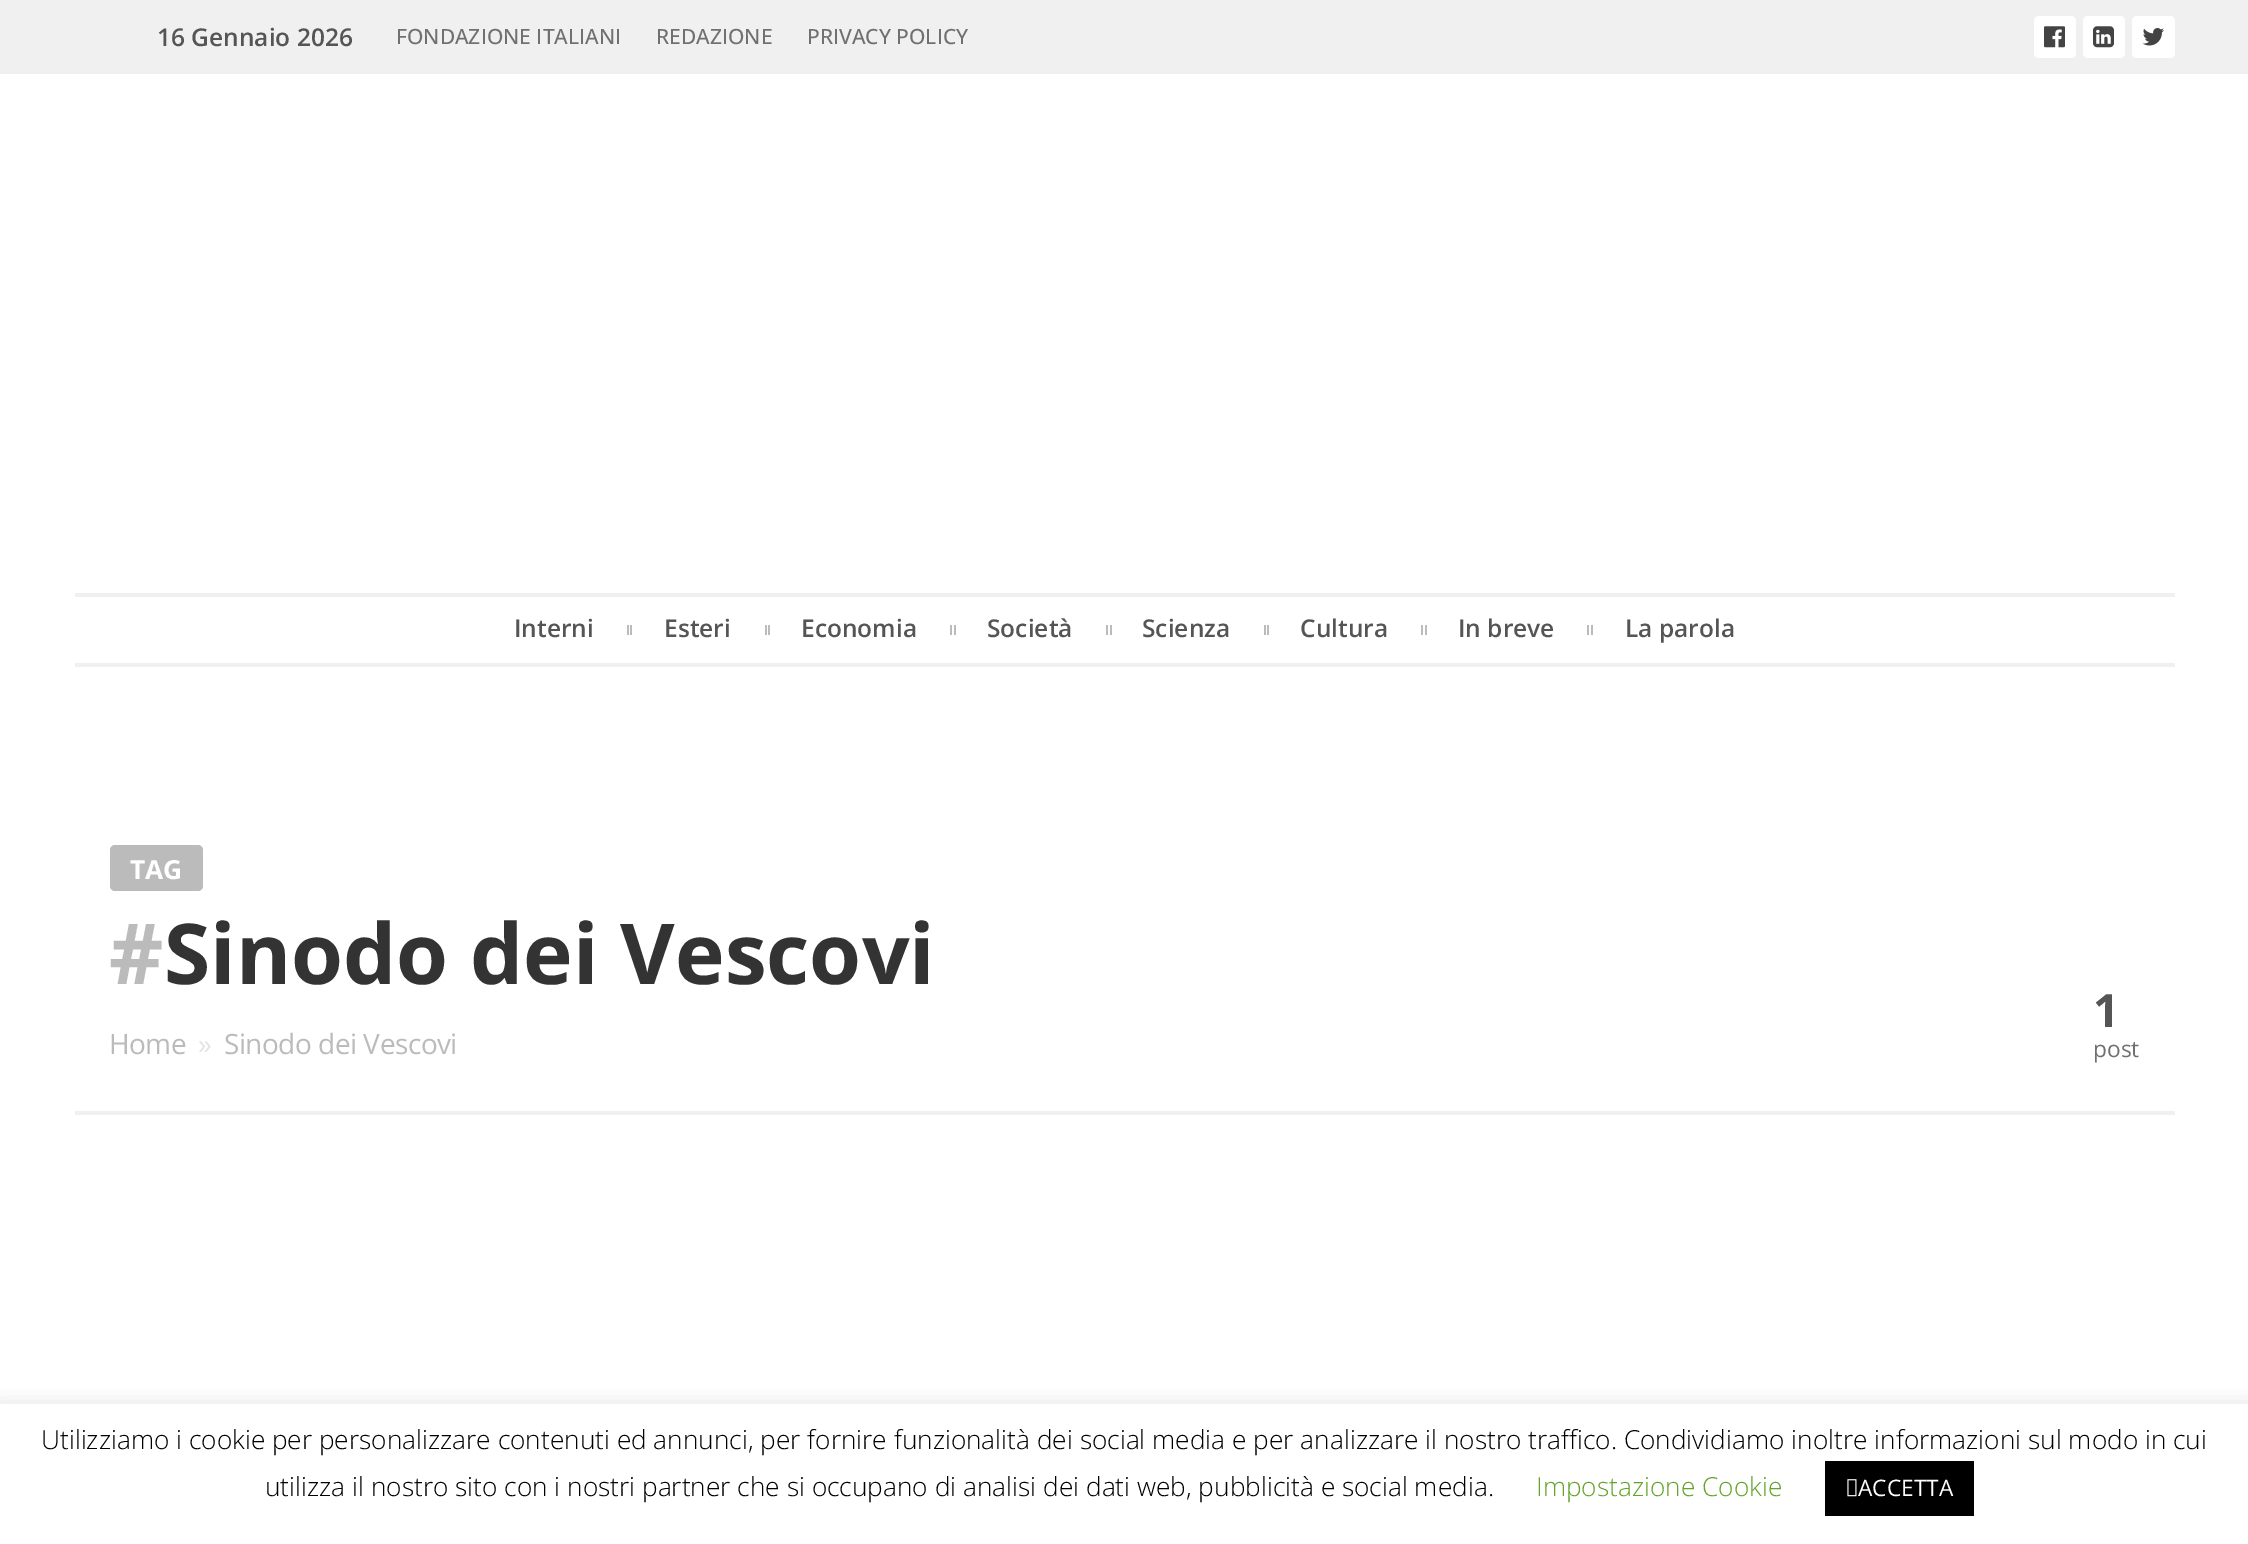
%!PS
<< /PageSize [2248 1544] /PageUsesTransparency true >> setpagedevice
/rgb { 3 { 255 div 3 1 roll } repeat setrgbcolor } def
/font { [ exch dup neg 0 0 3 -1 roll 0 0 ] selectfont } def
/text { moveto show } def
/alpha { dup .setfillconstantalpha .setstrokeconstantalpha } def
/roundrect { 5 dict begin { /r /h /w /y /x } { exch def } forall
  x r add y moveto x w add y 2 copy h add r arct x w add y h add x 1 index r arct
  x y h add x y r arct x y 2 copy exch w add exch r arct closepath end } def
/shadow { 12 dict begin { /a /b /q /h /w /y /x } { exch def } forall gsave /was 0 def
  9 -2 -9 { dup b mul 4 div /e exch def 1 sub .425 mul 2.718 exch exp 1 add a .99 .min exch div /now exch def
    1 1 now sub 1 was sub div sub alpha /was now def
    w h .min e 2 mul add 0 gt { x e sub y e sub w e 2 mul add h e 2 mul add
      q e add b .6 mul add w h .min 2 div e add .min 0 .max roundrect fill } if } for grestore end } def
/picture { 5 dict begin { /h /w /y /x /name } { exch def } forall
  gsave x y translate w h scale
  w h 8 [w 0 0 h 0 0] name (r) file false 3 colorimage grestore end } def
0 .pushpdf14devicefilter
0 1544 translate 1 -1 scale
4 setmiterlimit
255 255 255 rgb
0 0 2248 1544 rectfill
240 240 240 rgb
0 0 2248 74 rectfill
255 255 255 rgb
2034 16 42 42 5 roundrect fill
(img_01.rgb) 2044 26 21 22 picture
2083 16 42 42 5 roundrect fill
(img_02.rgb) 2093 26 21 22 picture
2132 16 43 42 5 roundrect fill
(img_03.rgb) 2142 28 22 18 picture
240 240 240 rgb
75 663 2100 4 rectfill
75 593 2100 4 rectfill
187 187 187 rgb
630 625 2 10 rectfill
627 625 2 10 rectfill
768 625 2 10 rectfill
765 625 2 10 rectfill
954 625 2 10 rectfill
950 625 2 10 rectfill
1110 625 2 10 rectfill
1106 625 2 10 rectfill
1267 625 2 10 rectfill
1264 625 2 10 rectfill
1425 625 2 10 rectfill
1421 625 2 10 rectfill
1591 625 2 10 rectfill
1587 625 2 10 rectfill
110 845 93 46 5 roundrect fill
240 240 240 rgb
75 1111 2100 4 rectfill
gsave
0 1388 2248 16 rectclip
172 171 171 rgb
0 1402 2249 142 0 9 0.3 shadow
grestore
0 0 0 rgb
1825 1461 149 55 rectfill
(img_04.rgb) 1847 1479 10 18 picture
/OpenSans-SemiBold 24.5 font
85 85 85 rgb
(16 Gennaio 2026) 157 46 text
/OpenSans-Medium 21 font
112 112 112 rgb
(FONDAZIONE ITALIANI) 396 44 text
(REDAZIONE) 656 44 text
(PRIVACY POLICY) 807 44 text
/OpenSans-SemiBold 24.5 font
85 85 85 rgb
(Interni) 514 637 text
(Esteri) 664 637 text
(Economia) 801 637 text
(Società) 987 637 text
(Scienza) 1142 637 text
(Cultura) 1300 637 text
(In breve) 1458 637 text
(La parola) 1625 637 text
/OpenSans-Bold 26.25 font
255 255 255 rgb
(TAG) 130 879 text
/OpenSans-Bold 84 font
187 187 187 rgb
(#) 109 984 text
51 51 51 rgb
(Sinodo dei Vescovi) 164 984 text
/OpenSans-Regular 28 font
187 187 187 rgb
109 1054 moveto -0.5 0 (Home) ashow
227 227 227 rgb
198 1054 moveto -0.5 0 (») ashow
187 187 187 rgb
224 1054 moveto -0.5 0 (Sinodo dei Vescovi) ashow
/OpenSans-Bold 46 font
85 85 85 rgb
(1) 2093 1027 text
/OpenSans-Regular 22.75 font
112 112 112 rgb
(post) 2093 1057 text
/OpenSans-Light 26.25 font
0 0 0 rgb
(Utilizziamo i cookie per personalizzare contenuti ed annunci, per fornire funzionalità dei social media e per analizzare il nostro traffico. Condividiamo inoltre informazioni sul modo in cui) 41 1449 text
(utilizza il nostro sito con i nostri partner che si occupano di analisi dei dati web, pubblicità e social media.) 265 1496 text
98 163 41 rgb
(Impostazione Cookie) 1536 1496 text
/OpenSans-Regular 22.75 font
255 255 255 rgb
(ACCETTA) 1858 1496 text
.poppdf14devicefilter showpage
